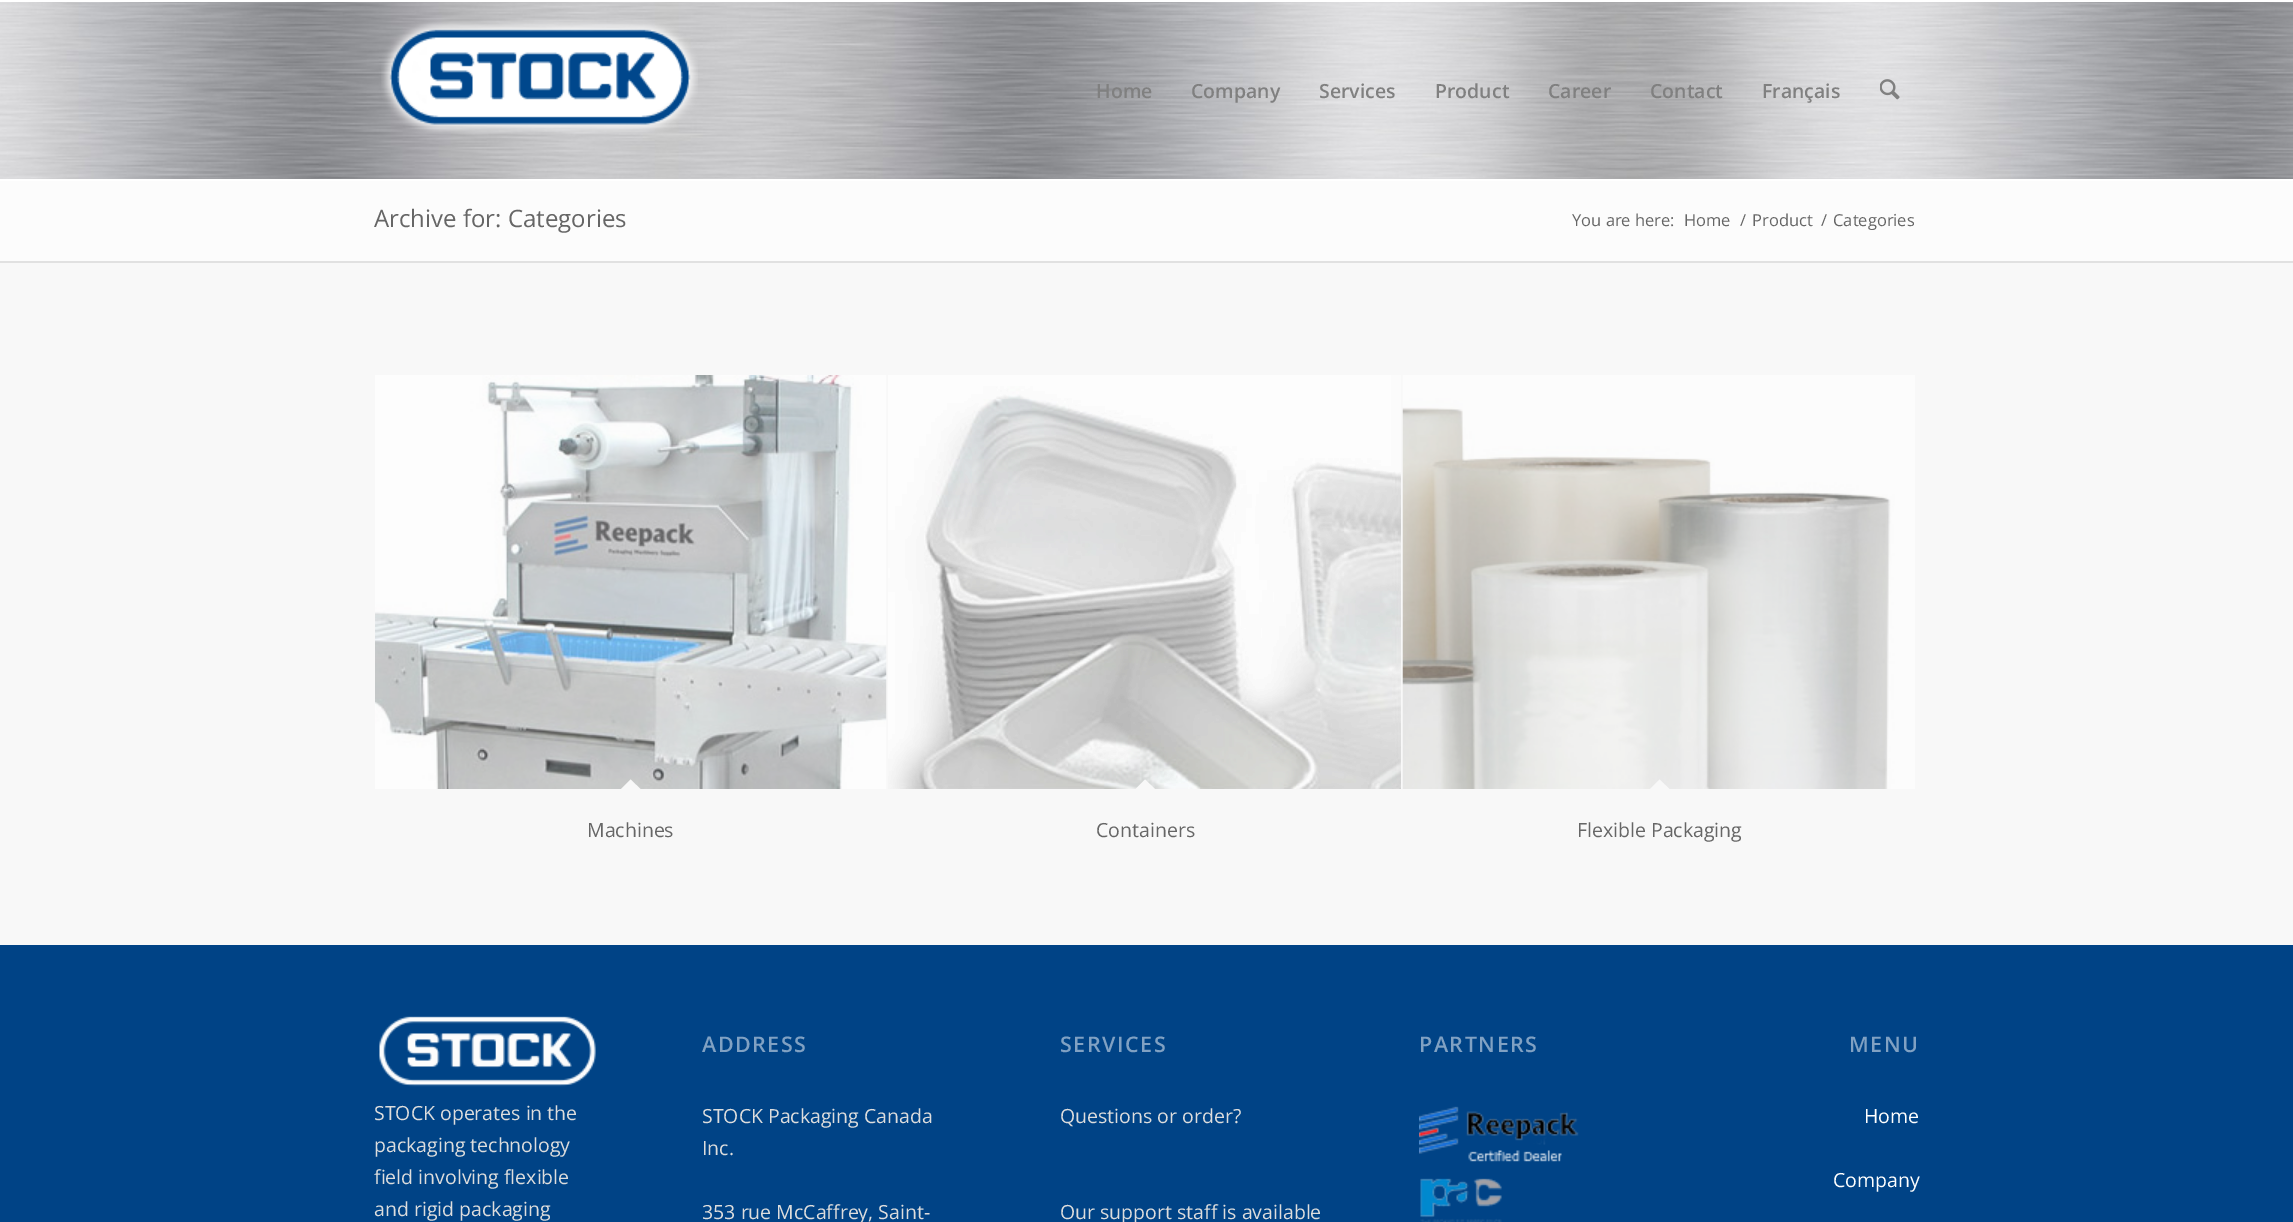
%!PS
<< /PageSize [2293 1222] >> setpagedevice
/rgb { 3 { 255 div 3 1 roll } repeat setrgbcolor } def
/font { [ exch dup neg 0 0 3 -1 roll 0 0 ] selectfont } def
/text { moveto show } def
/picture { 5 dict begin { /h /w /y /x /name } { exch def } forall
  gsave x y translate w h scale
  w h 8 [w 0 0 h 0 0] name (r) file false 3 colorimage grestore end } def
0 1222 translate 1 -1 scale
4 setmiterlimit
252 252 252 rgb
0 0 2293 1222 rectfill
(img_01.rgb) 0 2 2293 177 picture
255 255 255 rgb
0 0 2293 2 rectfill
0 179 2293 2 rectfill
(img_02.rgb) 381 20 317 114 picture
(img_03.rgb) 1880 79 20 21 picture
248 248 248 rgb
0 263 2293 682 rectfill
225 225 225 rgb
0 261 2293 2 rectfill
(img_04.rgb) 375 375 512 414 picture
248 248 248 rgb
630.5 779.5 moveto 11 10.5 rlineto -11 11 rlineto -10.5 -11 rlineto closepath fill
(img_05.rgb) 888 375 513 414 picture
1145 779.5 moveto 11 10.5 rlineto -11 11 rlineto -10.5 -11 rlineto closepath fill
(img_06.rgb) 1402 375 513 414 picture
1659.5 779.5 moveto 11 10.5 rlineto -11 11 rlineto -10.5 -11 rlineto closepath fill
0 67 134 rgb
0 945 2293 277 rectfill
(img_07.rgb) 379 1016 217 71 picture
(img_08.rgb) 1419 1106 160 116 picture
/OpenSans-SemiBold 19.5 font
128 128 128 rgb
(Home) 1096 98 text
(Company) 1191 98 text
(Services) 1319 98 text
(Product) 1435 98 text
(Career) 1548 98 text
(Contact) 1650 98 text
(Français) 1762 98 text
/OpenSans-Regular 24 font
102 102 102 rgb
(Archive for: Categories) 374 227 text
/OpenSans-Regular 16.5 font
(You are here:) 1572 226 text
(Home) 1684 226 text
(/) 1740 226 text
(Product) 1752 226 text
(/) 1821 226 text
(Categories) 1833 226 text
/OpenSans-Regular 19.5 font
(Machines) 587 837 text
(Containers) 1096 837 text
(Flexible Packaging) 1577 837 text
221 221 221 rgb
(STOCK operates in the) 374 1120 text
(packaging technology) 374 1152 text
(field involving flexible) 374 1184 text
(and rigid packaging) 374 1216 text
/OpenSans-SemiBold 21.5 font
128 161 195 rgb
702 1052 moveto 1.5 0 (ADDRESS) ashow
/OpenSans-Regular 19.5 font
221 221 221 rgb
(STOCK Packaging Canada) 702 1123 text
(Inc.) 702 1155 text
(353 rue McCaffrey, Saint-) 702 1219 text
/OpenSans-SemiBold 21.5 font
128 161 195 rgb
1060 1052 moveto 1.5 0 (SERVICES) ashow
/OpenSans-Regular 19.5 font
221 221 221 rgb
(Questions or order?) 1060 1123 text
(Our support staff is available) 1060 1219 text
/OpenSans-SemiBold 21.5 font
128 161 195 rgb
1419 1052 moveto 1.5 0 (PARTNERS) ashow
1849 1052 moveto 1.5 0 (MENU) ashow
/OpenSans-Regular 19.5 font
255 255 255 rgb
(Home) 1864 1123 text
(Company) 1833 1187 text
showpage
